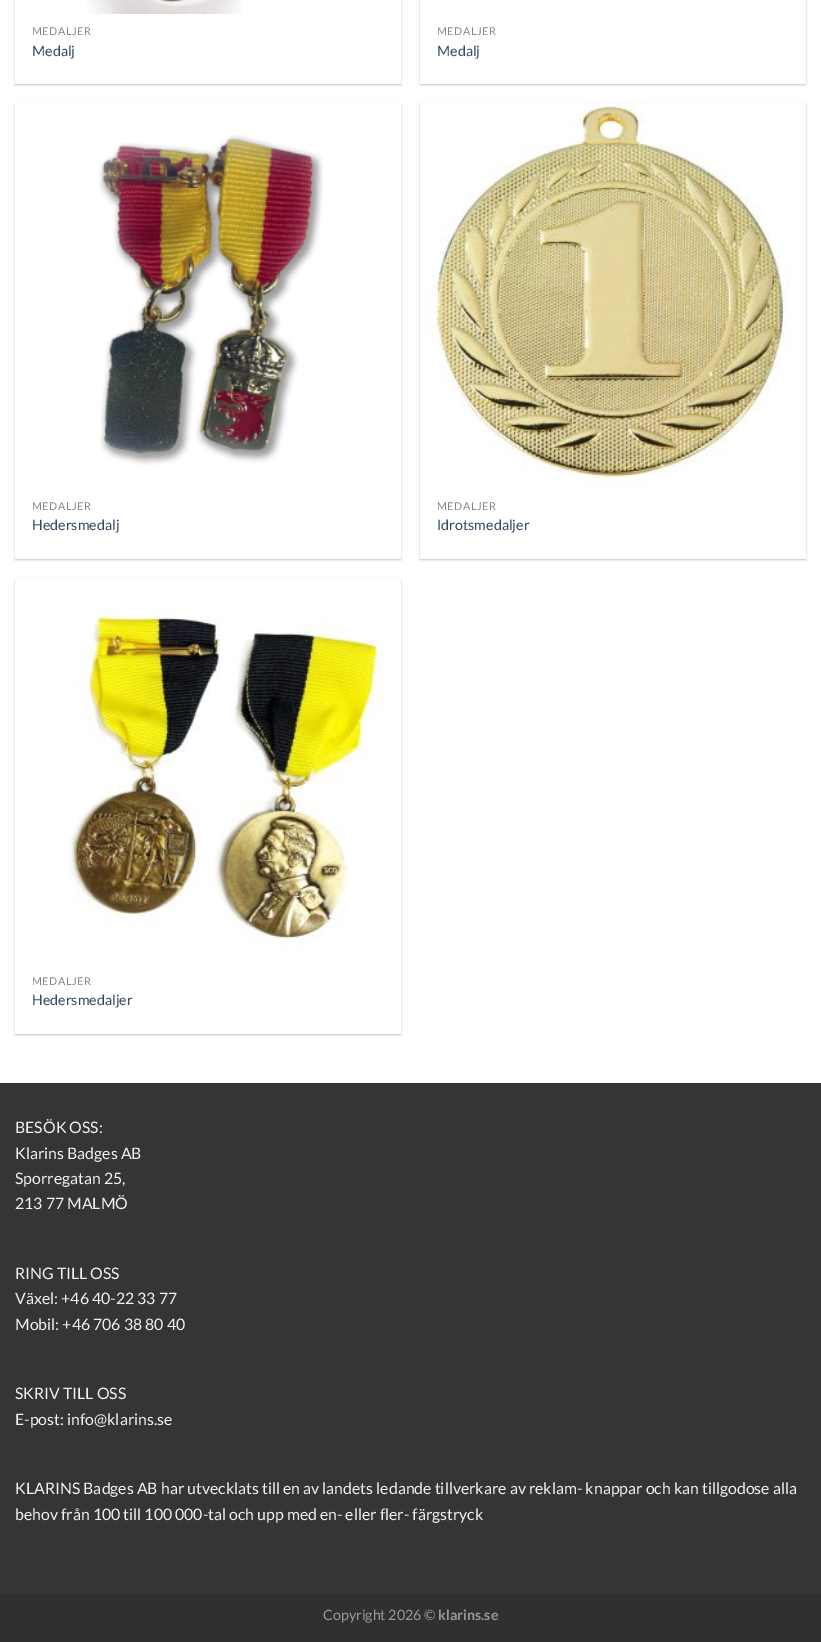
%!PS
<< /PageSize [821 1642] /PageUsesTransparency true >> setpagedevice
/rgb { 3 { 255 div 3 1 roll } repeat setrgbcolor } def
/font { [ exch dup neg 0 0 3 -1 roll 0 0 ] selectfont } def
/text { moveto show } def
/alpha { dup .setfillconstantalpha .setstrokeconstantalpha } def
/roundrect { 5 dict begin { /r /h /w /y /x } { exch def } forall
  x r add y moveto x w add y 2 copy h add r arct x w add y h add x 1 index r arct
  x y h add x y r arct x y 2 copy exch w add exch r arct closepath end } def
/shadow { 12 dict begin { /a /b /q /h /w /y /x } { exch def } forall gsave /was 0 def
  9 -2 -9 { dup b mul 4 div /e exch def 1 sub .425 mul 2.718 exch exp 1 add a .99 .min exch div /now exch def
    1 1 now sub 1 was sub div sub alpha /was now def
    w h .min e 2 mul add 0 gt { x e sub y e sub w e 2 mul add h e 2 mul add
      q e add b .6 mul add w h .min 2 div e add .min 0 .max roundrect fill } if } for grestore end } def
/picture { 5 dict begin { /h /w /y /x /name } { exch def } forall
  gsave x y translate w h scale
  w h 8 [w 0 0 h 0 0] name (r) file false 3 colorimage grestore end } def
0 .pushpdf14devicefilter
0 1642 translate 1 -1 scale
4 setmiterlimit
255 255 255 rgb
0 0 821 1642 rectfill
gsave
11 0 moveto 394 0 rlineto 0 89 rlineto -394 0 rlineto closepath 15 -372 moveto 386 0 rlineto 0 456 rlineto -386 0 rlineto closepath eoclip newpath
0 0 0 rgb
15 -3 386 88 0 1 0.24 shadow
grestore
(img_01.rgb) 87 0 155 14 picture
gsave
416 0 moveto 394 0 rlineto 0 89 rlineto -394 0 rlineto closepath 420 -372 moveto 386 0 rlineto 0 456 rlineto -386 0 rlineto closepath eoclip newpath
0 0 0 rgb
420 -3 386 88 0 1 0.24 shadow
grestore
gsave
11 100 moveto 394 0 rlineto 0 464 rlineto -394 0 rlineto closepath 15 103 moveto 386 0 rlineto 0 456 rlineto -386 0 rlineto closepath eoclip newpath
0 0 0 rgb
15 104 386 456 0 1 0.24 shadow
grestore
(img_02.rgb) 99 135 224 330 picture
gsave
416 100 moveto 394 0 rlineto 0 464 rlineto -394 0 rlineto closepath 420 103 moveto 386 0 rlineto 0 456 rlineto -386 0 rlineto closepath eoclip newpath
0 0 0 rgb
420 104 386 456 0 1 0.24 shadow
grestore
(img_03.rgb) 420 103 370 386 picture
gsave
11 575 moveto 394 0 rlineto 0 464 rlineto -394 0 rlineto closepath 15 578 moveto 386 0 rlineto 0 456 rlineto -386 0 rlineto closepath eoclip newpath
0 0 0 rgb
15 579 386 456 0 1 0.24 shadow
grestore
(img_04.rgb) 68 609 318 340 picture
53 53 53 rgb
0 1084 821 510 rectfill
50 50 50 rgb
0 1083 821 1 rectfill
48 48 48 rgb
0 1594 821 48 rectfill
/Lato-Regular 10.75 font
133 133 133 rgb
32 35 moveto 0.5 0 (MEDALJER) ashow
/Lato-Regular 14.25 font
51 72 98 rgb
(Medalj) 32 56 text
/Lato-Regular 10.75 font
133 133 133 rgb
437 35 moveto 0.5 0 (MEDALJER) ashow
/Lato-Regular 14.25 font
51 72 98 rgb
(Medalj) 437 56 text
/Lato-Regular 10.75 font
133 133 133 rgb
32 510 moveto 0.5 0 (MEDALJER) ashow
/Lato-Regular 14.25 font
51 72 98 rgb
(Hedersmedalj) 32 530 text
/Lato-Regular 10.75 font
133 133 133 rgb
437 510 moveto 0.5 0 (MEDALJER) ashow
/Lato-Regular 14.25 font
51 72 98 rgb
(Idrotsmedaljer) 437 530 text
/Lato-Regular 10.75 font
133 133 133 rgb
32 985 moveto 0.5 0 (MEDALJER) ashow
/Lato-Regular 14.25 font
51 72 98 rgb
(Hedersmedaljer) 32 1005 text
/Lato-Regular 15.85 font
241 241 241 rgb
(BESÖK OSS:) 15 1133 text
(Klarins Badges AB) 15 1159 text
(Sporregatan 25,) 15 1184 text
(213 77 MALMÖ) 15 1209 text
(RING TILL OSS) 15 1279 text
(Växel: +46 40-22 33 77) 15 1304 text
(Mobil: +46 706 38 80 40) 15 1330 text
(SKRIV TILL OSS) 15 1399 text
(E-post: info@klarins.se) 15 1425 text
(KLARINS Badges AB har utvecklats till en av landets ledande tillverkare av reklam- knappar och kan tillgodose alla) 15 1494 text
(behov från 100 till 100 000-tal och upp med en- eller fler- färgstryck) 15 1520 text
/Lato-Regular 14.25 font
152 152 152 rgb
(Copyright 2026 ©) 323 1620 text
/Lato-Bold 14.25 font
(klarins.se) 438 1620 text
.poppdf14devicefilter showpage
